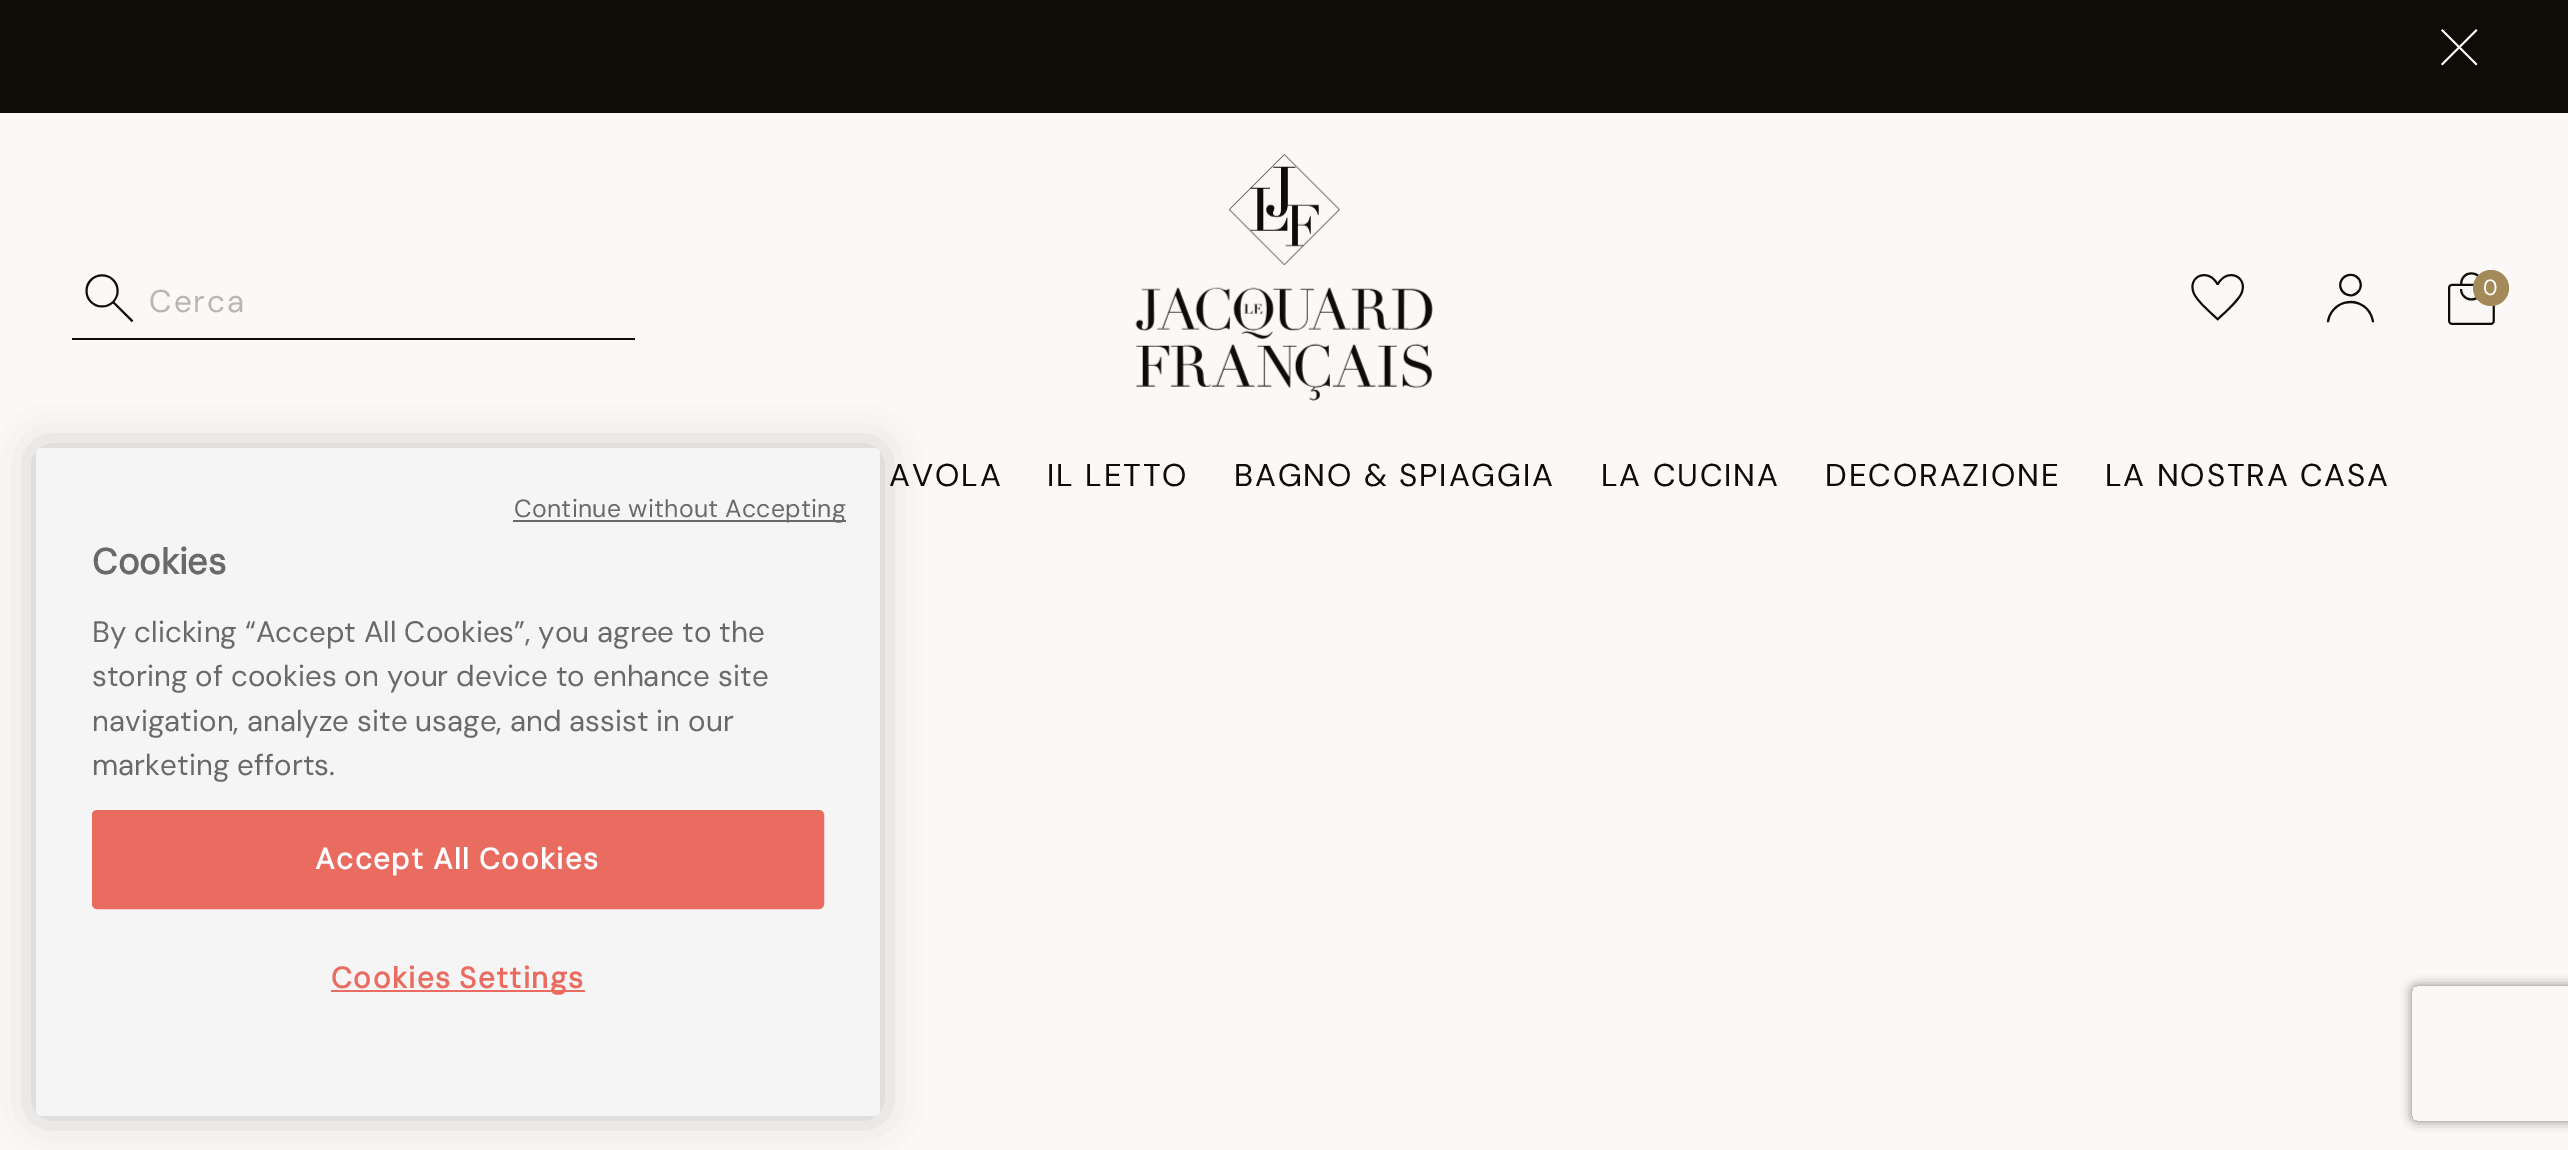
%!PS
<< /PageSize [2568 1150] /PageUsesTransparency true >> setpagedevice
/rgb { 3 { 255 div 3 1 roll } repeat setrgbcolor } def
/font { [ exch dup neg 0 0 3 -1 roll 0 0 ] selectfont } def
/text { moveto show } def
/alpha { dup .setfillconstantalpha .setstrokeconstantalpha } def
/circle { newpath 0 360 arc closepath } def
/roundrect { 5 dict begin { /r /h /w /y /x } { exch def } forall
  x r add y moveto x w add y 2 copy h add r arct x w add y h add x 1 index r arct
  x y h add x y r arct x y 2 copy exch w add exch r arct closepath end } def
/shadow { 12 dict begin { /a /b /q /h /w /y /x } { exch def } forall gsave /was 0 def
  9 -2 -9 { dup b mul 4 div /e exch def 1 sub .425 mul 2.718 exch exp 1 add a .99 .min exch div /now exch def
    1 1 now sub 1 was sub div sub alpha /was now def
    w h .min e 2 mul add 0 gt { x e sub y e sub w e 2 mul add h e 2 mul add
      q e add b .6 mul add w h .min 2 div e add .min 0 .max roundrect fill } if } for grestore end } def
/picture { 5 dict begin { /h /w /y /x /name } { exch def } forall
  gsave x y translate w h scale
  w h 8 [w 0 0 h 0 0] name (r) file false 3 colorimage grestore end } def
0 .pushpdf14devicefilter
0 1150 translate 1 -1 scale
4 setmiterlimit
251 249 247 rgb
0 0 2568 1150 rectfill
15 12 7 rgb
0 0 2568 113 rectfill
(img_01.rgb) 2441 29 37 37 picture
72 338 563 2 rectfill
(img_02.rgb) 85 274 49 49 picture
(img_03.rgb) 1228 153 112 112 picture
(img_04.rgb) 1135 287 298 114 picture
(img_05.rgb) 2191 274 53 47 picture
(img_06.rgb) 2326 273 49 50 picture
(img_07.rgb) 2448 272 47 53 picture
164 138 88 rgb
2491 288 18 circle fill
0 0 0 rgb
36 448 844 668 6 20 0.2 shadow
245 245 245 rgb
36 448 844 668 6 roundrect fill
105 105 105 rgb
513 520 333 2 rectfill
234 107 96 rgb
93 811 730 97 4 roundrect gsave fill grestore
2 setlinewidth
stroke
331 990 254 2 rectfill
gsave
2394 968 moveto 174 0 rlineto 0 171 rlineto -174 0 rlineto closepath 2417 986 moveto 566 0 rlineto 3 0 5 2 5 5 rcurveto 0 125 rlineto 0 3 -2 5 -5 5 rcurveto -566 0 rlineto -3 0 -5 -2 -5 -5 rcurveto 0 -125 rlineto 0 -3 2 -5 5 -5 rcurveto closepath eoclip newpath
128 128 128 rgb
2412 986 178 135 5 5.5 1 shadow
grestore
/DMSans-Regular 31.5 font
183 182 180 rgb
149 312 moveto 2 0 (Cerca) ashow
/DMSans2-Regular 22 font
255 255 255 rgb
(0) 2483 295 text
/DMSans-Regular 31.5 font
15 12 7 rgb
889 486 moveto 1.9 0 (AVOLA) ashow
1047 486 moveto 1.9 0 (IL LETTO) ashow
1234 486 moveto 1.9 0 (BAGNO & SPIAGGIA) ashow
1601 486 moveto 1.9 0 (LA CUCINA) ashow
1825 486 moveto 1.9 0 (DECORAZIONE) ashow
2105 486 moveto 1.9 0 (LA NOSTRA CASA) ashow
/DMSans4-Regular 24.8 font
105 105 105 rgb
514 517 moveto 0.25 0 (Continue without Accepting) ashow
/DMSans-Bold 36 font
(Cookies) 92 574 text
/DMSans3-Regular 29.5 font
(By clicking “Accept All Cookies”, you agree to the) 92 642 text
(storing of cookies on your device to enhance site) 92 686 text
(navigation, analyze site usage, and assist in our) 92 731 text
(marketing efforts.) 92 775 text
/DMSans-Bold 29.5 font
255 255 255 rgb
315 869 moveto -1 0 32 1.5 0 (Accept All Cookies) awidthshow
234 107 96 rgb
331 988 moveto -2 0 32 1.5 0 (Cookies Settings) awidthshow
.poppdf14devicefilter showpage
